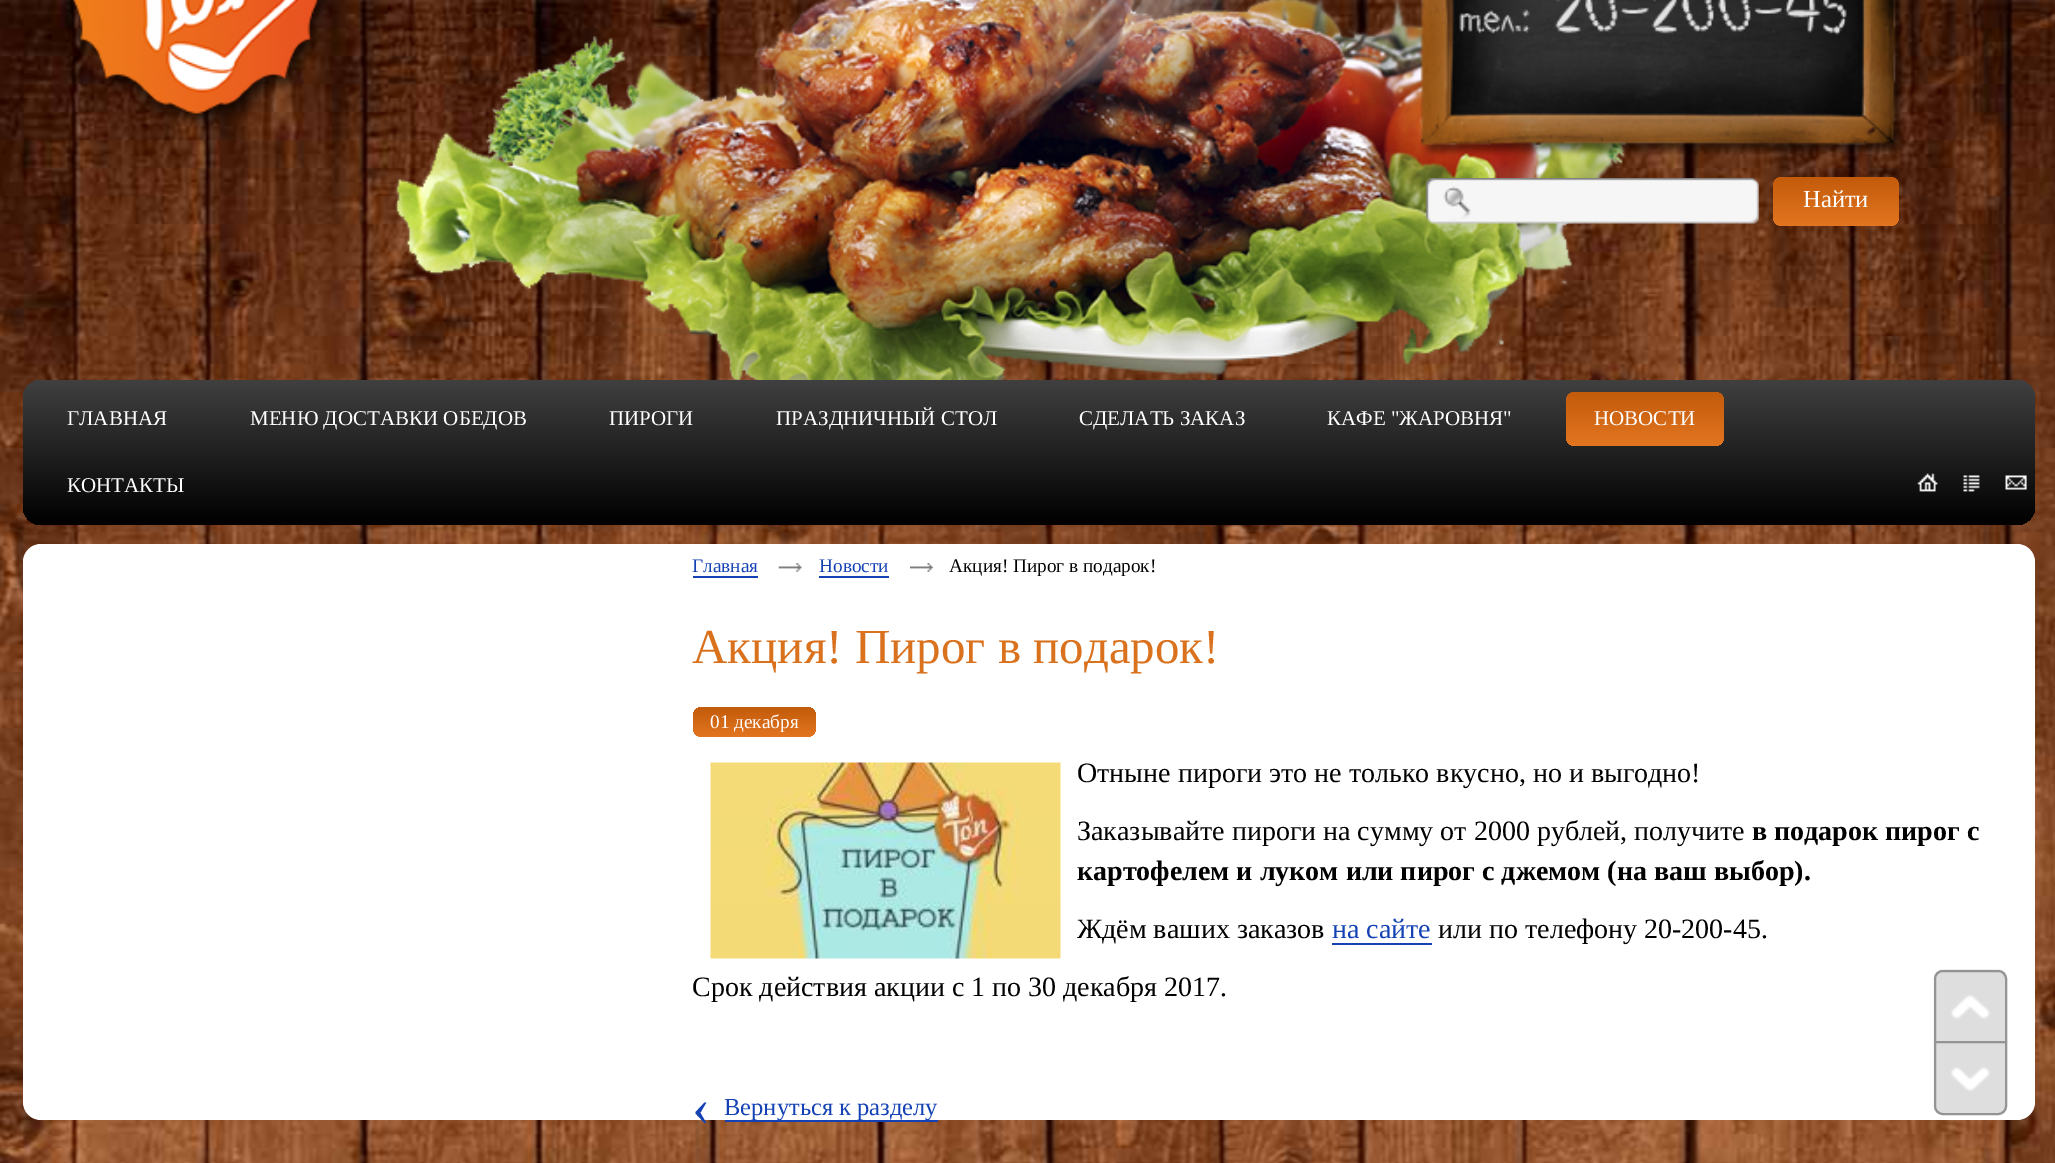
%!PS
<< /PageSize [2055 1163] >> setpagedevice
/rgb { 3 { 255 div 3 1 roll } repeat setrgbcolor } def
/font { [ exch dup neg 0 0 3 -1 roll 0 0 ] selectfont } def
/text { moveto show } def
/roundrect { 5 dict begin { /r /h /w /y /x } { exch def } forall
  x r add y moveto x w add y 2 copy h add r arct x w add y h add x 1 index r arct
  x y h add x y r arct x y 2 copy exch w add exch r arct closepath end } def
/picture { 5 dict begin { /h /w /y /x /name } { exch def } forall
  gsave x y translate w h scale
  w h 8 [w 0 0 h 0 0] name (r) file false 3 colorimage grestore end } def
0 1163 translate 1 -1 scale
4 setmiterlimit
255 255 255 rgb
0 0 2055 1163 rectfill
(img_01.rgb) 0 0 2055 1163 picture
(img_02.rgb) 395 0 1510 380 picture
(img_03.rgb) 69 0 265 130 picture
(img_04.rgb) 1426 178 333 46 picture
gsave 1773 177 126 49 9 roundrect clip newpath
<< /ShadingType 2 /ColorSpace /DeviceRGB /Coords [1836 177 1836 226] /Extend [true true] /Function << /FunctionType 2 /Domain [0 1] /C0 [0.761 0.357 0.043] /C1 [0.89 0.459 0.125] /N 1 >> >> shfill grestore
gsave 23 380 2012 145 18 roundrect clip newpath
<< /ShadingType 2 /ColorSpace /DeviceRGB /Coords [1029 380 1029 525] /Extend [true true] /Function << /FunctionType 2 /Domain [0 1] /C0 [0.251 0.251 0.251] /C1 [0 0 0] /N 1 >> >> shfill grestore
gsave 1566 392 158 54 9 roundrect clip newpath
<< /ShadingType 2 /ColorSpace /DeviceRGB /Coords [1645 392 1645 446] /Extend [true true] /Function << /FunctionType 2 /Domain [0 1] /C0 [0.761 0.357 0.043] /C1 [0.89 0.459 0.125] /N 1 >> >> shfill grestore
(img_05.rgb) 1917 473 21 19 picture
(img_06.rgb) 1963 475 17 17 picture
(img_07.rgb) 2005 475 22 15 picture
23 544 2012 576 18 roundrect fill
20 66 181 rgb
693 576 65 2 rectfill
(img_08.rgb) 778 563 24 9 picture
819 576 70 2 rectfill
(img_09.rgb) 910 563 23 9 picture
gsave 693 707 123 30 9 roundrect clip newpath
<< /ShadingType 2 /ColorSpace /DeviceRGB /Coords [754 707 754 737] /Extend [true true] /Function << /FunctionType 2 /Domain [0 1] /C0 [0.761 0.357 0.043] /C1 [0.89 0.459 0.125] /N 1 >> >> shfill grestore
(img_10.rgb) 710 762 351 197 picture
1332 943 100 2 rectfill
725 1120 213 2 rectfill
(img_11.rgb) 1933 969 75 75 picture
148 148 148 rgb
2 setlinewidth
1943 971 moveto 55 0 rlineto 4.5 0 8 3.5 8 8 rcurveto 0 63 rlineto -71 0 rlineto 0 -63 rlineto 0 -4.5 3.5 -8 8 -8 rcurveto closepath stroke
(img_12.rgb) 1933 1041 75 74 picture
1935 1042 moveto 71 0 rlineto 0 64 rlineto 0 4.5 -3.5 8 -8 8 rcurveto -55 0 rlineto -4.5 0 -8 -3.5 -8 -8 rcurveto closepath stroke
/LiberationSerif-Regular 24.5 font
255 255 255 rgb
(Найти) 1803 207 text
/LiberationSerif-Regular 21 font
(ГЛАВНАЯ) 67 425 text
(МЕНЮ ДОСТАВКИ ОБЕДОВ) 250 425 text
(ПИРОГИ) 609 425 text
(ПРАЗДНИЧНЫЙ СТОЛ) 776 425 text
(СДЕЛАТЬ ЗАКАЗ) 1079 425 text
(КАФЕ "ЖАРОВНЯ") 1327 425 text
(НОВОСТИ) 1594 425 text
(КОНТАКТЫ) 67 492 text
/LiberationSerif-Regular 19.25 font
20 66 181 rgb
(Главная) 692 572 text
(Новости) 819 572 text
0 0 0 rgb
(Акция! Пирог в подарок!) 949 572 text
/LiberationSerif-Regular 49 font
217 113 29 rgb
(Акция! Пирог в подарок!) 692 663 text
/LiberationSerif-Regular 19.25 font
255 255 255 rgb
(01 декабря) 710 728 text
/LiberationSerif-Regular 28 font
0 0 0 rgb
(Отныне пироги это не только вкусно, но и выгодно!) 1077 782 text
(Заказывайте пироги на сумму от 2000 рублей, получите) 1077 840 text
/LiberationSerif-Bold 28 font
(в подарок пирог с) 1752 840 text
(картофелем и луком или пирог с джемом \(на ваш выбор\).) 1077 880 text
/LiberationSerif-Regular 28 font
(Ждём ваших заказов) 1077 938 text
20 66 181 rgb
(на сайте) 1332 938 text
0 0 0 rgb
(или по телефону 20-200-45.) 1438 938 text
(Срок действия акции с 1 по 30 декабря 2017.) 692 996 text
/LiberationSerif-Regular 54 font
20 66 181 rgb
(‹) 692 1125 text
/LiberationSerif-Regular 24.5 font
(Вернуться к разделу) 724 1115 text
showpage
